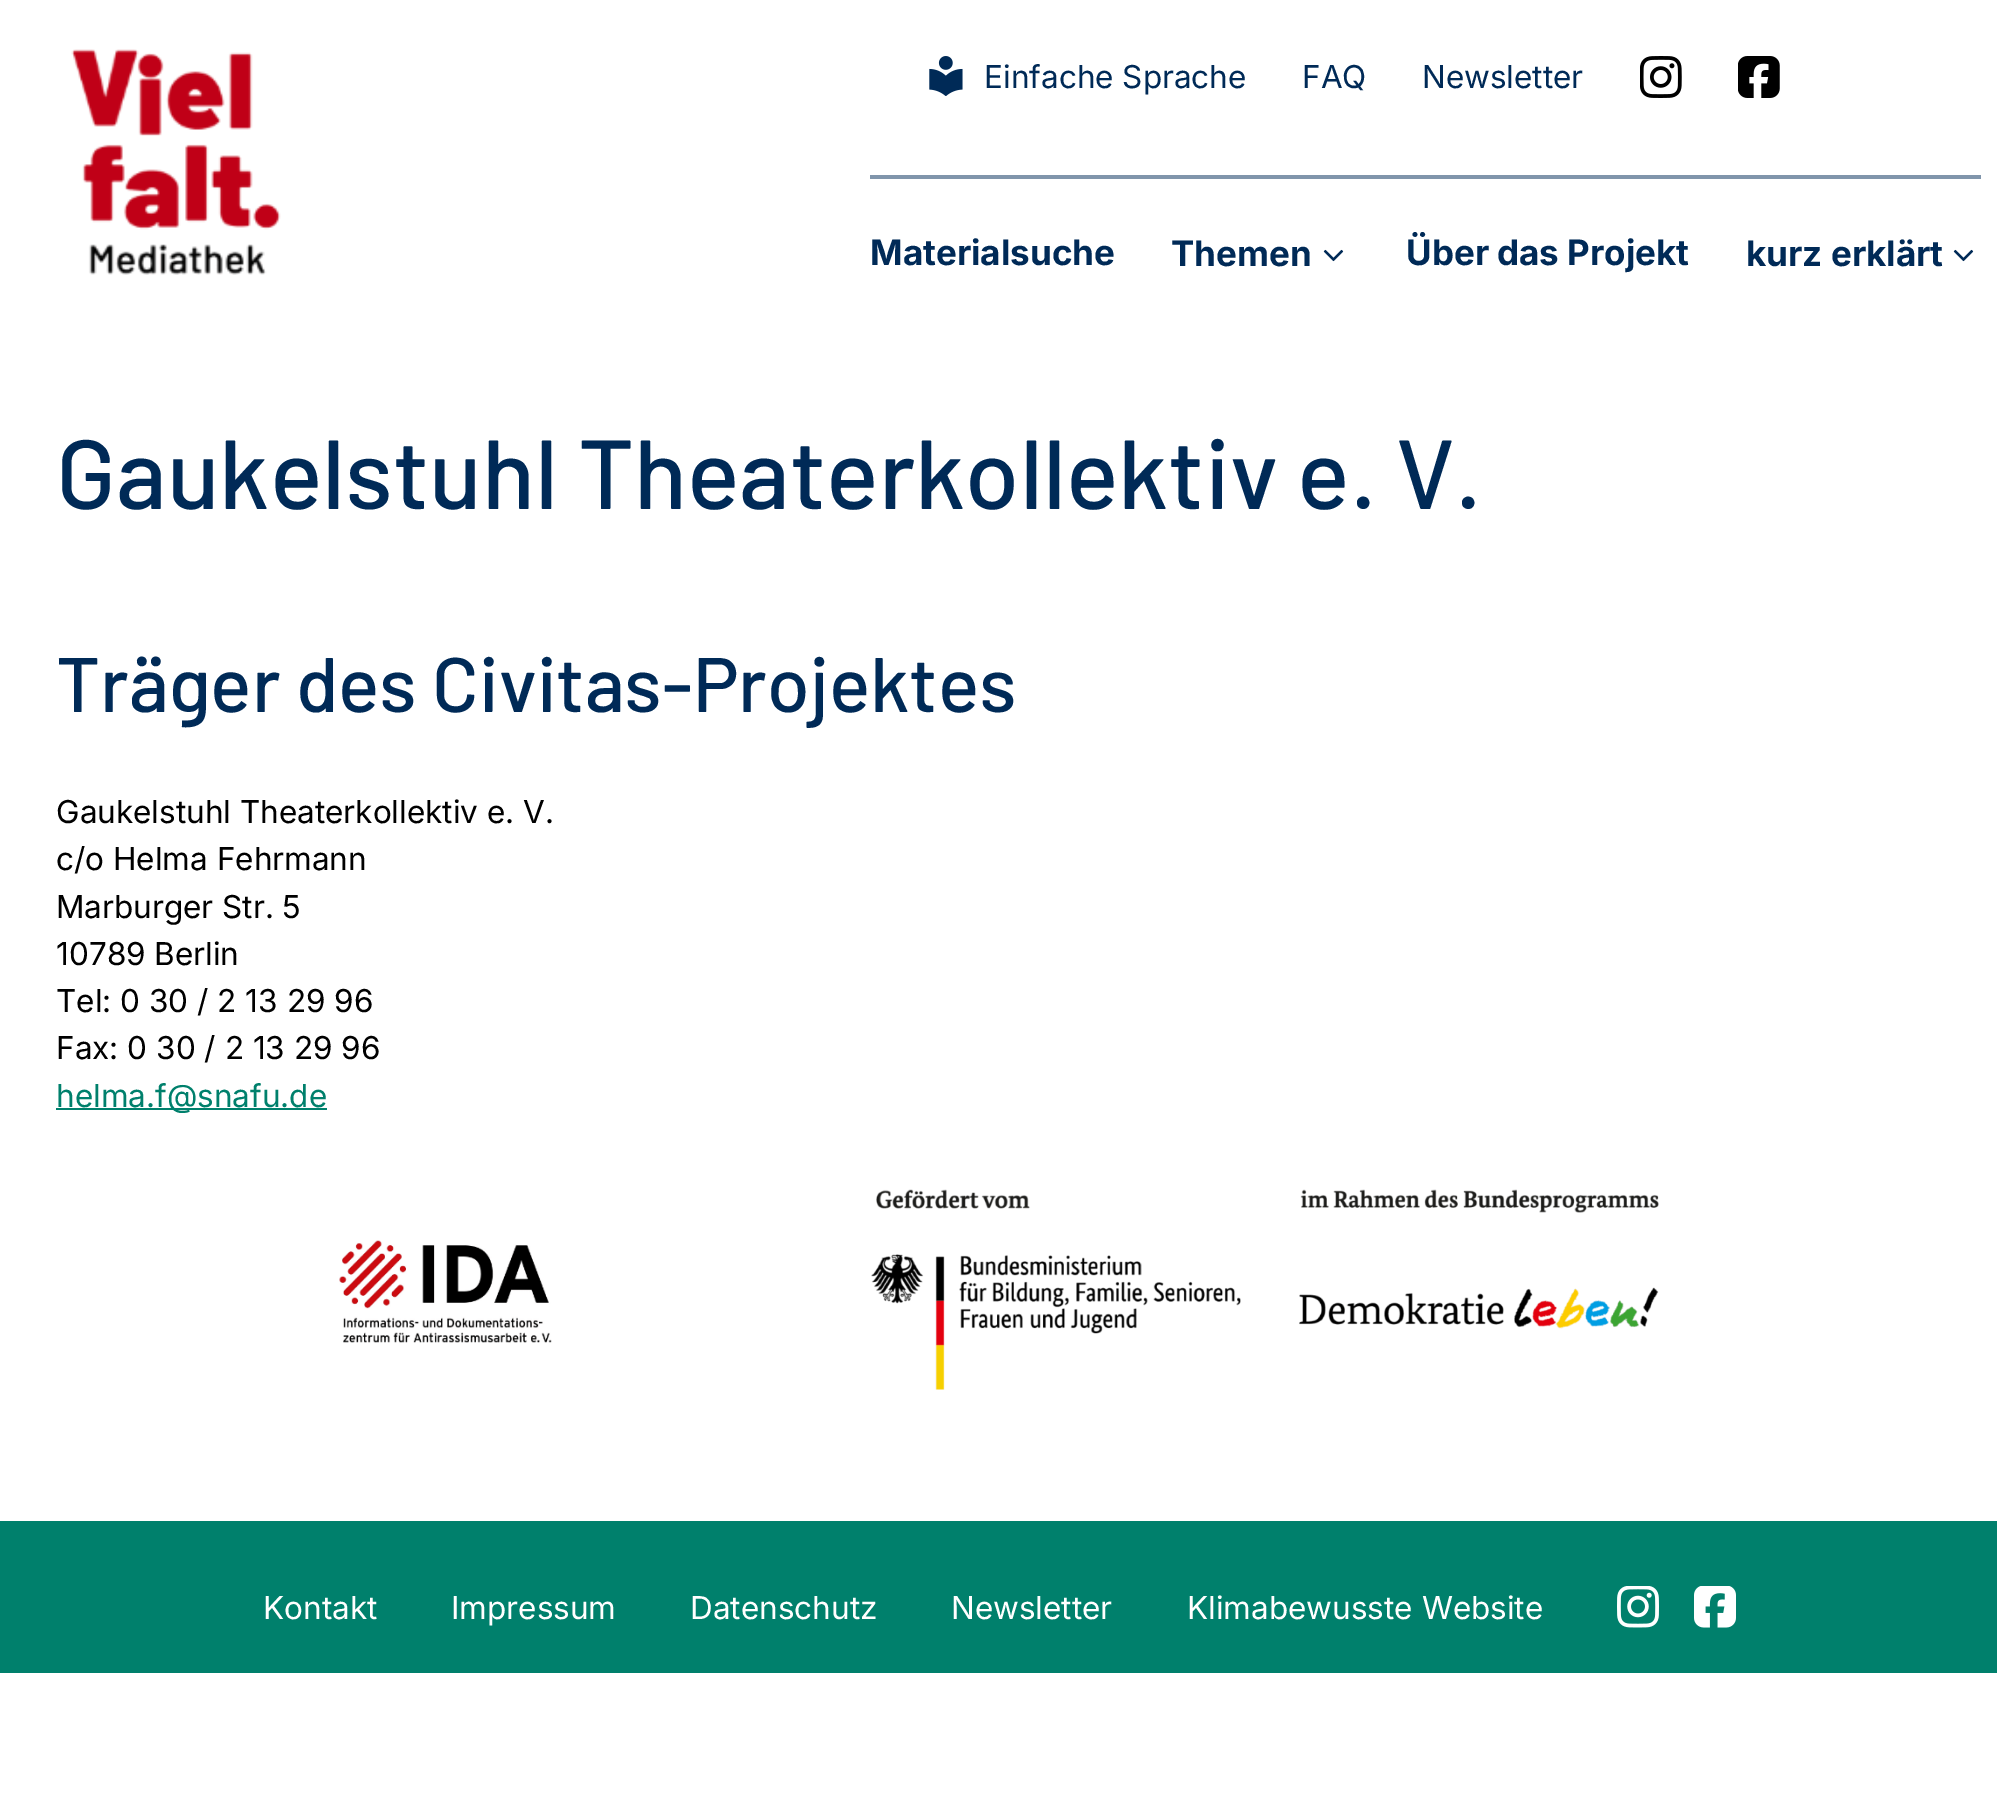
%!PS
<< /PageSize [1997 1807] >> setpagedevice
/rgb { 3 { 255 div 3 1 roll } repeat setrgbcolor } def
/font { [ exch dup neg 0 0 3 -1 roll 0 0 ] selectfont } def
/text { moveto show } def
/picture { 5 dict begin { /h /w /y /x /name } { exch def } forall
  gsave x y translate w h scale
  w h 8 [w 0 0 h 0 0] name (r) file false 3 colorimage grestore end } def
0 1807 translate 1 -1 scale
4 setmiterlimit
255 255 255 rgb
0 0 1997 1807 rectfill
(img_01.rgb) 929 56 34 40 picture
(img_02.rgb) 1640 56 42 42 picture
(img_03.rgb) 1738 56 42 42 picture
(img_04.rgb) 71 49 210 226 picture
128 149 171 rgb
870 175 1111 4 rectfill
(img_05.rgb) 1323 249 21 13 picture
(img_05.rgb) 1953 249 21 13 picture
0 128 108 rgb
56 1108 271 2 rectfill
(img_06.rgb) 339 1240 213 103 picture
(img_07.rgb) 871 1189 370 201 picture
(img_08.rgb) 1299 1189 360 140 picture
0 1521 1997 152 rectfill
(img_09.rgb) 1617 1586 42 42 picture
(img_10.rgb) 1694 1586 42 42 picture
/Inter-Regular 31.5 font
0 42 87 rgb
(Einfache Sprache) 984 88 text
(FAQ) 1302 88 text
(Newsletter) 1422 88 text
/Inter-Bold 35 font
(Materialsuche) 870 265 text
(Themen) 1171 266 text
(Über das Projekt) 1406 265 text
(kurz erklärt) 1746 266 text
/Barlow-Medium 98 font
(Gaukelstuhl Theaterkollektiv e. V.) 56 509 text
/Barlow-Medium 77 font
(Träger des Civitas-Projektes) 56 712 text
/Inter-Regular 31.5 font
0 0 0 rgb
(Gaukelstuhl Theaterkollektiv e. V.) 56 823 text
(c/o Helma Fehrmann) 56 870 text
(Marburger Str. 5) 56 918 text
(10789 Berlin) 56 965 text
(Tel: 0 30 / 2 13 29 96) 56 1012 text
(Fax: 0 30 / 2 13 29 96) 56 1059 text
0 128 108 rgb
(helma.f@snafu.de) 56 1107 text
255 255 255 rgb
(Kontakt) 263 1619 text
(Impressum) 451 1619 text
(Datenschutz) 690 1619 text
(Newsletter) 951 1619 text
(Klimabewusste Website) 1187 1619 text
showpage
